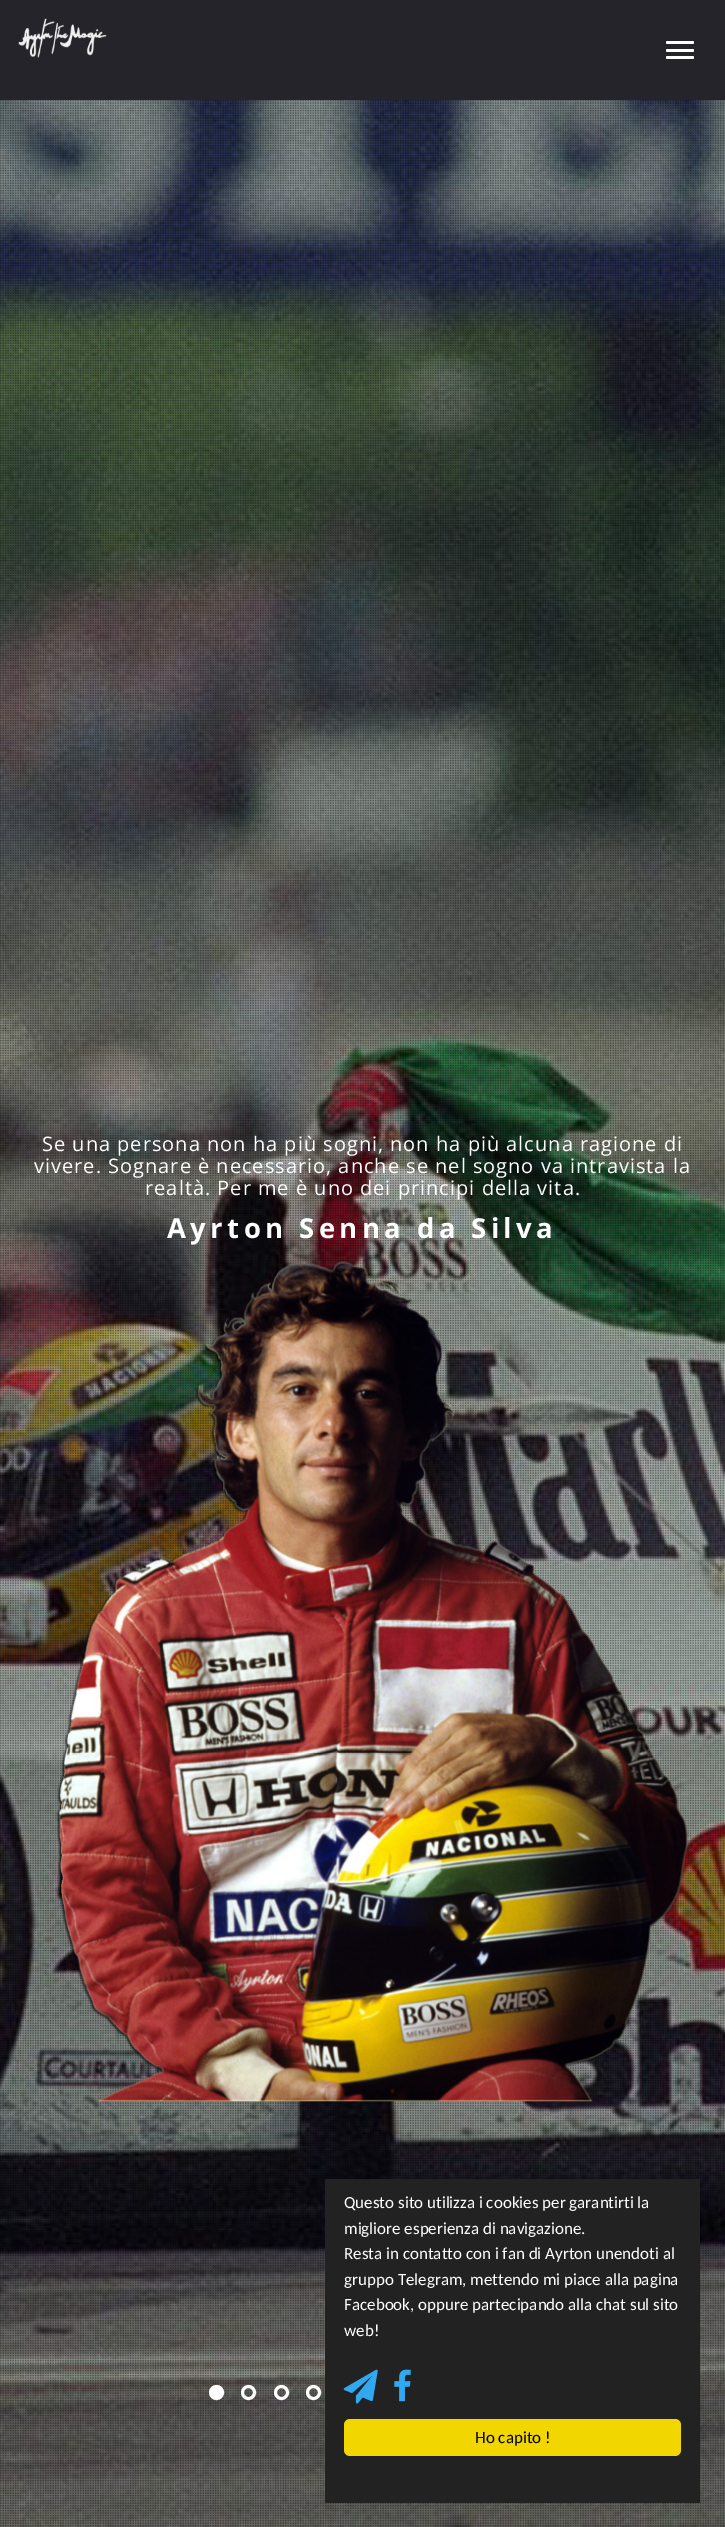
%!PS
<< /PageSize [725 2527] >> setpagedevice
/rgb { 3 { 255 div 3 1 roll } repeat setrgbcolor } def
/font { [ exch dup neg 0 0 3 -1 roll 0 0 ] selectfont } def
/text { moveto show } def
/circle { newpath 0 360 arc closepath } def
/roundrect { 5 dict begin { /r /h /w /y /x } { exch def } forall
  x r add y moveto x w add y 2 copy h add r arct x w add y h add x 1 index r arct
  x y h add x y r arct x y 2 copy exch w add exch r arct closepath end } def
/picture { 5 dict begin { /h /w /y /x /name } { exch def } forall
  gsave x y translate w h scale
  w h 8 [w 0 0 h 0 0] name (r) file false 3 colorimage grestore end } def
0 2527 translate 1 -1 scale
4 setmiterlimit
255 255 255 rgb
0 0 725 2527 rectfill
36 36 42 rgb
0 0 725 100 rectfill
(img_01.rgb) 18 18 89 40 picture
255 255 255 rgb
666 41 28 3 1.5 roundrect fill
666 49 28 3 1.5 roundrect fill
666 56 28 3 1.5 roundrect fill
(img_02.rgb) 0 100 725 2427 picture
(img_03.rgb) 0 100 725 2427 picture
(img_04.rgb) 56 1261 633 841 picture
216.5 2392.5 6 circle gsave fill grestore
3 setlinewidth
stroke
248.5 2392.5 6 circle stroke
281.5 2392.5 6 circle stroke
313.5 2392.5 6 circle stroke
34 34 34 rgb
325 2179 375 324 rectfill
(img_05.rgb) 343 2369 35 35 picture
(img_06.rgb) 394 2369 17 33 picture
241 214 0 rgb
344 2419 337 37 6 roundrect fill
/OpenSans-Regular 20 font
255 255 255 rgb
42 1151 moveto 1 0 (Se una persona non ha più sogni, non ha più alcuna ragione di) ashow
34 1173 moveto 1 0 (vivere. Sognare è necessario, anche se nel sogno va intravista la) ashow
145 1195 moveto 1 0 (realtà. Per me è uno dei principi della vita.) ashow
/OpenSans-Bold 27.5 font
167 1238 moveto 4.4 0 (Ayrton Senna da Silva) ashow
/Carlito-Regular 17 font
(Questo sito utilizza i cookies per garantirti la) 344 2208 text
(migliore esperienza di navigazione.) 344 2234 text
(Resta in contatto con i fan di Ayrton unendoti al) 344 2259 text
(gruppo Telegram, mettendo mi piace alla pagina) 344 2285 text
(Facebook, oppure partecipando alla chat sul sito) 344 2310 text
(web!) 344 2336 text
0 0 0 rgb
(Ho capito !) 475 2443 text
showpage
